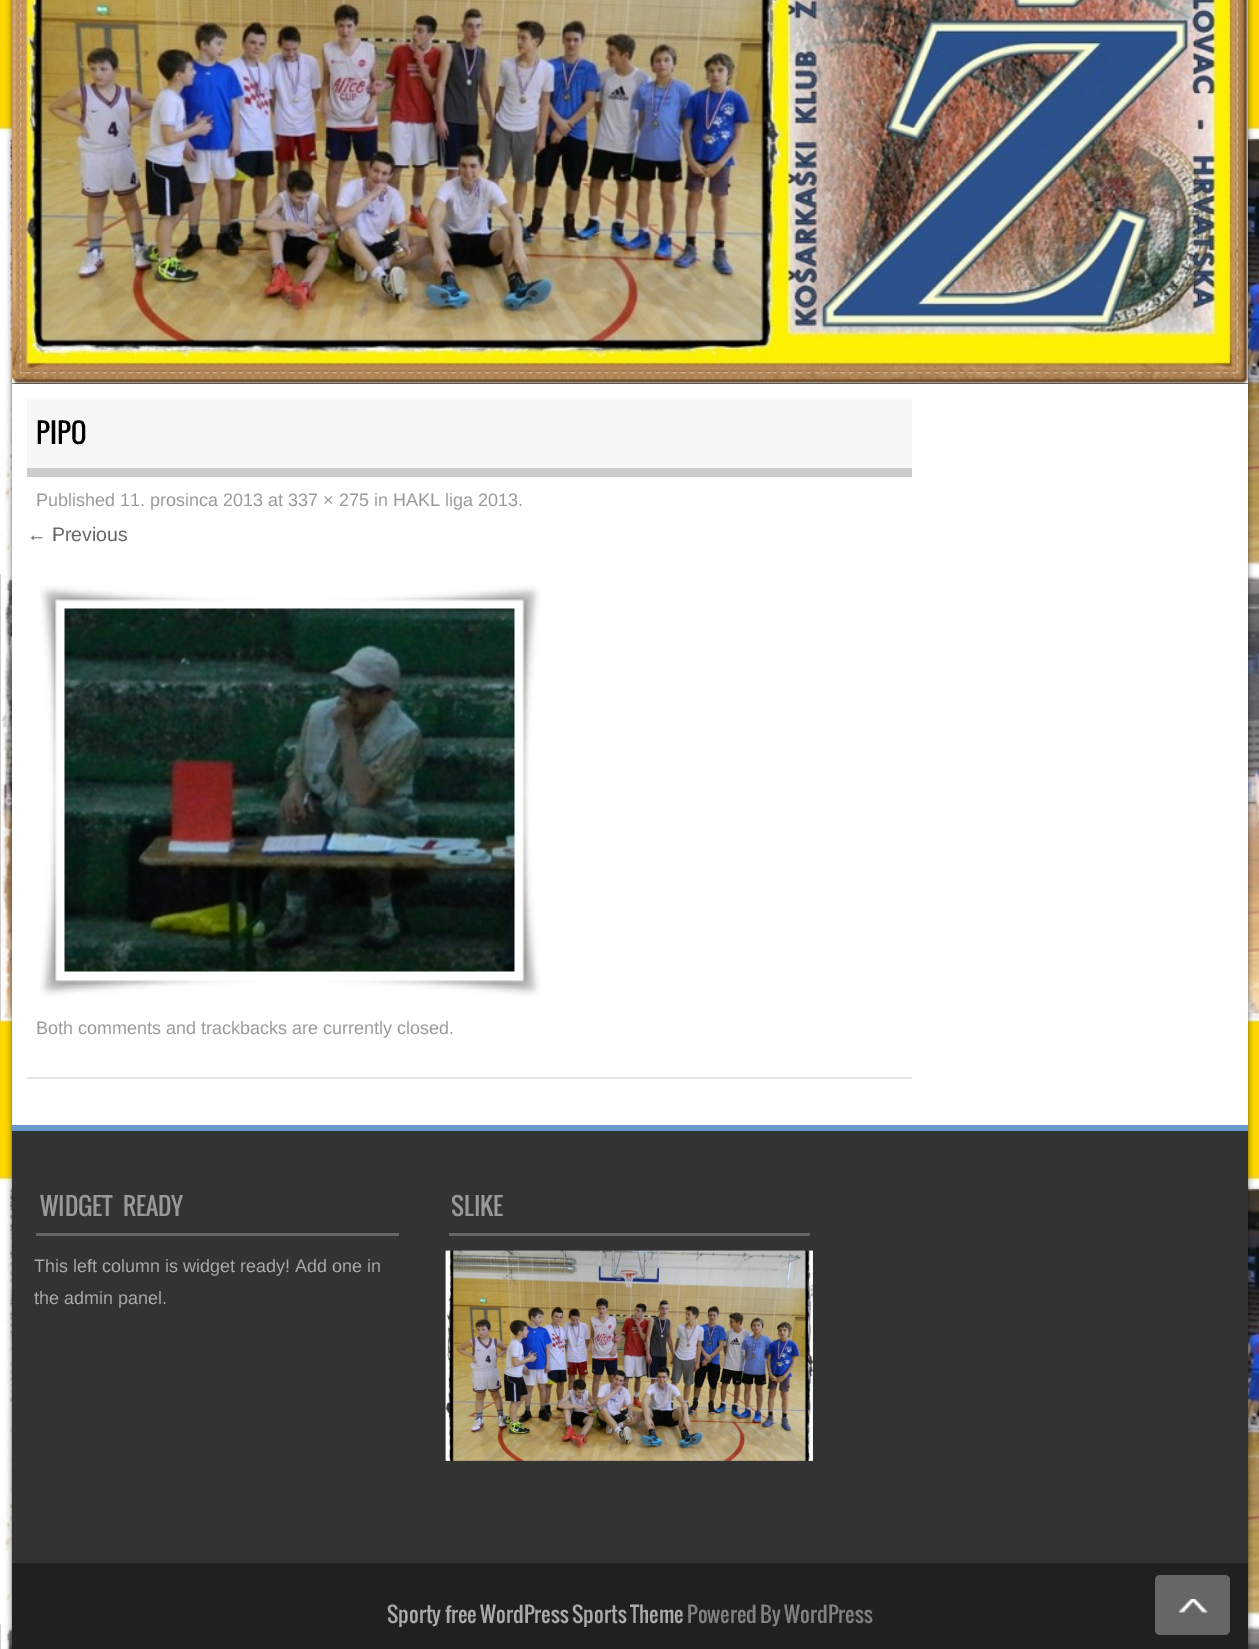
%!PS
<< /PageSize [1259 1649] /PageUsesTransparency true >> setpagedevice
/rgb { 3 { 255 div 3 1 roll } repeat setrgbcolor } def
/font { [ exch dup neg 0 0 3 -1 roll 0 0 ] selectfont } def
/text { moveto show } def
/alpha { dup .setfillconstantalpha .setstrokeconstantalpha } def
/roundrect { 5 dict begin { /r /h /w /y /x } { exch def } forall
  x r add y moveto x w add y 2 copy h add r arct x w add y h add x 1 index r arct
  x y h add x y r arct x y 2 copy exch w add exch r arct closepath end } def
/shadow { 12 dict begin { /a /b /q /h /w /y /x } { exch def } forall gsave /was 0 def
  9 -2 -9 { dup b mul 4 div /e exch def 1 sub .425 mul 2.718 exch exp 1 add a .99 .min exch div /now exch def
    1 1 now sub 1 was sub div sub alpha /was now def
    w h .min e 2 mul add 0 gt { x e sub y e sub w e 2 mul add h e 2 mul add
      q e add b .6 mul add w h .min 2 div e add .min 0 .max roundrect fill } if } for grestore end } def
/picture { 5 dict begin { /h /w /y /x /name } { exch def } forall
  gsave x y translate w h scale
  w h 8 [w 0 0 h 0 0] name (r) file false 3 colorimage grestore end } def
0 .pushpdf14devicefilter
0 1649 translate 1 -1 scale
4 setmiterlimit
255 255 255 rgb
0 0 1259 1649 rectfill
(img_01.rgb) 0 0 1259 1649 picture
0 0 0 rgb
12 -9 1236 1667 0 3 0.6 shadow
12 383 1236 1 rectfill
(img_02.rgb) 12 0 1236 384 picture
255 255 255 rgb
12 384 1236 741 rectfill
230 230 230 rgb
27 1077 885 2 rectfill
247 247 247 rgb
27 399 885 69 rectfill
204 204 204 rgb
27 468 885 9 rectfill
(img_03.rgb) 40 585 501 412 picture
51 51 51 rgb
12 1131 1236 432 rectfill
102 153 204 rgb
12 1125 1236 6 rectfill
102 102 102 rgb
36 1233 363 3 rectfill
449 1233 361 3 rectfill
(img_04.rgb) 445 1250 368 211 picture
32 32 32 rgb
12 1563 1236 86 rectfill
102 102 102 rgb
1155 1575 75 60 5 roundrect fill
(img_05.rgb) 1179 1599 29 14 picture
/Oswald-Regular 27 font
0 0 0 rgb
(PIPO) 36 444 text
/LiberationSans-Regular 18 font
153 153 153 rgb
(Published 11. prosinca 2013 at 337 × 275 in HAKL liga 2013.) 36 506 text
/LiberationSans-Regular 19.5 font
102 102 102 rgb
(← Previous) 27 541 text
/LiberationSans-Regular 18 font
153 153 153 rgb
(Both comments and trackbacks are currently closed.) 36 1034 text
/Oswald-Regular 24 font
40 1216 moveto 6 0 32 (WIDGET READY) widthshow
/LiberationSans-Regular 18 font
170 170 170 rgb
(This left column is widget ready! Add one in) 34 1272 text
(the admin panel.) 34 1304 text
/Oswald-Regular 24 font
153 153 153 rgb
(SLIKE) 451 1216 text
/Oswald-Regular 21 font
170 170 170 rgb
(Sporty free WordPress Sports Theme) 387 1623 text
128 128 128 rgb
(Powered By WordPress) 687 1623 text
.poppdf14devicefilter showpage
